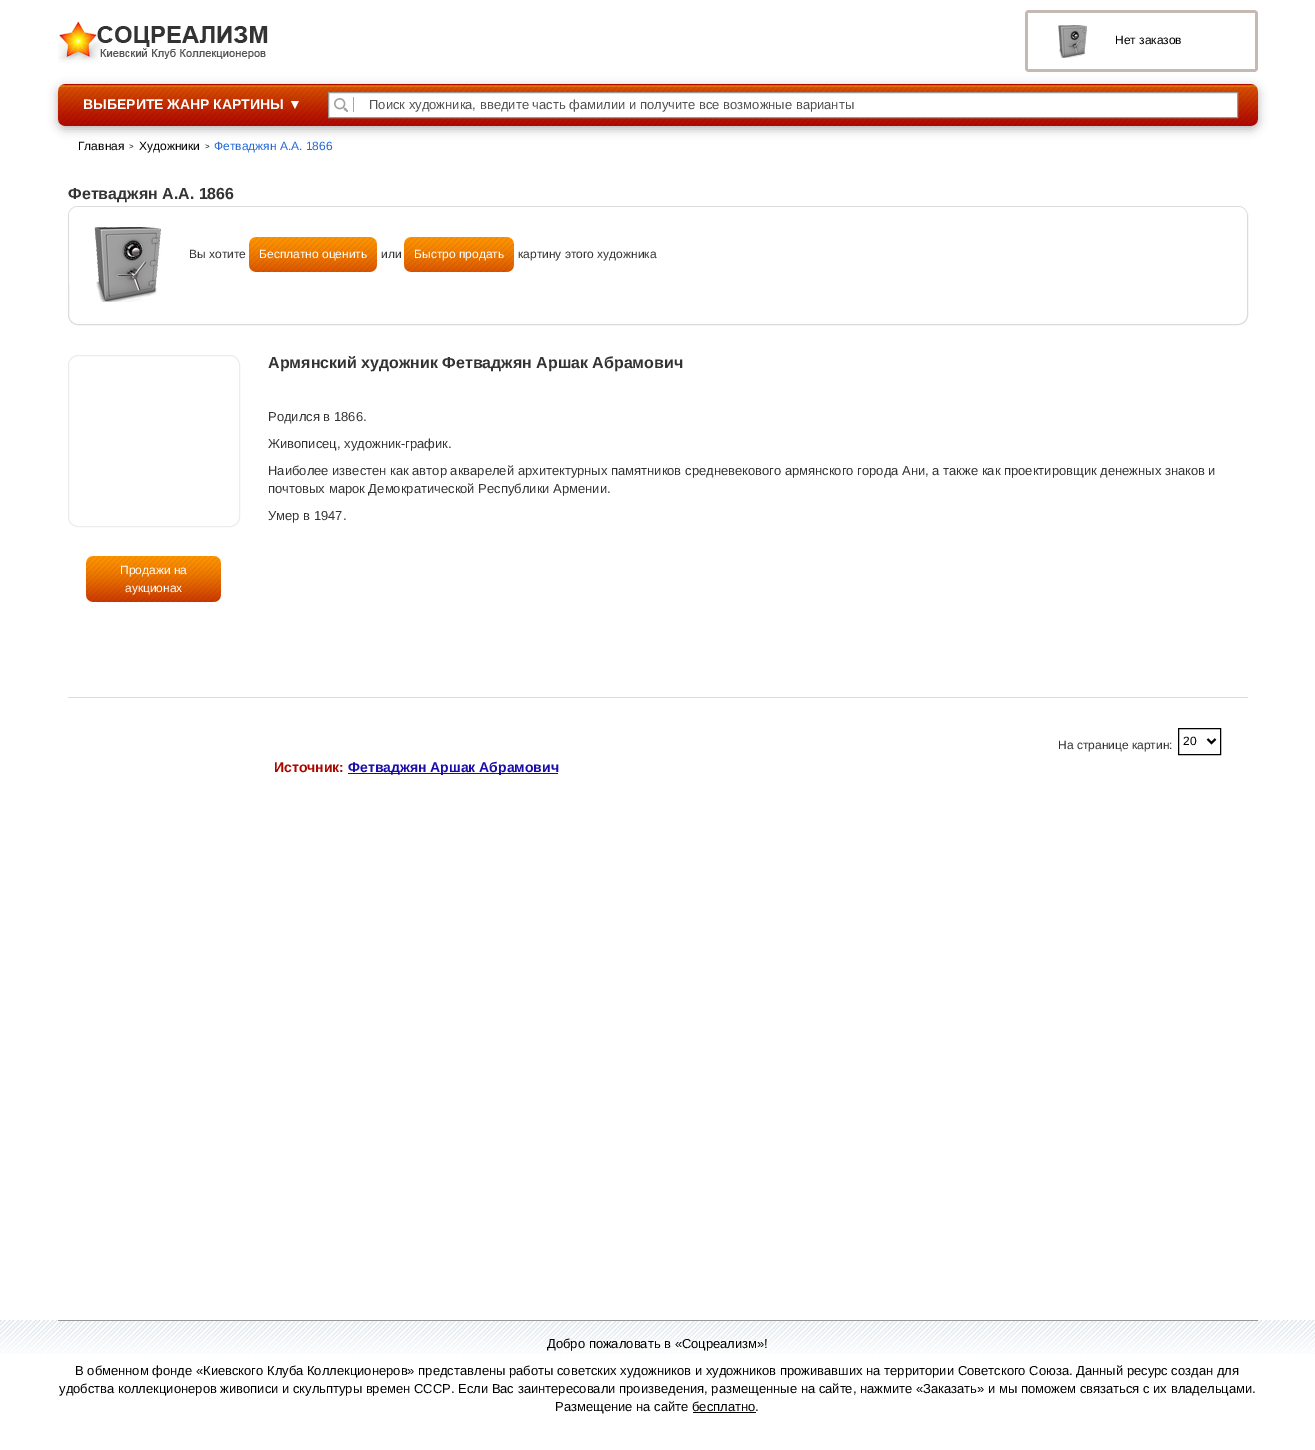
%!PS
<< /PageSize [1315 1450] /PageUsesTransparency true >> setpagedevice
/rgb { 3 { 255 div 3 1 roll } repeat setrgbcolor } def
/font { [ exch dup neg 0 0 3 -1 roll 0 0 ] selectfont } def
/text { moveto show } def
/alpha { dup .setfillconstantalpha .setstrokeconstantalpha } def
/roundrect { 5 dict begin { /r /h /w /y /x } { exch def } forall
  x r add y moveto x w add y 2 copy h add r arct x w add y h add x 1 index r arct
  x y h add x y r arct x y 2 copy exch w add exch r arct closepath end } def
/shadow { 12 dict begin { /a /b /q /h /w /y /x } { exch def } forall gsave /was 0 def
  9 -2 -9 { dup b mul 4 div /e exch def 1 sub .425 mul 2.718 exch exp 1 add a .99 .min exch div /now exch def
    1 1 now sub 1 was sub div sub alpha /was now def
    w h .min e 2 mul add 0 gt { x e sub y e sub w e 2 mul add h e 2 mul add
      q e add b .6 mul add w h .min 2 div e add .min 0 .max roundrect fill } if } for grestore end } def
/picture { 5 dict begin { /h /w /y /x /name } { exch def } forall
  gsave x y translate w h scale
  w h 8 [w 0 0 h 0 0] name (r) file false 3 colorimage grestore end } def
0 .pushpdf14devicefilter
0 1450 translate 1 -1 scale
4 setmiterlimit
255 255 255 rgb
0 0 1315 1450 rectfill
(img_01.rgb) 58 21 210 42 picture
198 185 180 rgb
1025 10 233 62 4 roundrect fill
255 255 255 rgb
1028 13 227 56 rectfill
(img_02.rgb) 1058 25 29 33 picture
0 0 0 rgb
58 87 1200 42 7 5 0.3 shadow
(img_03.rgb) 58 84 1200 42 picture
255 255 255 rgb
328.5 92.5 moveto 909 0 rlineto 0 25 rlineto -909 0 rlineto closepath gsave fill grestore
153 153 153 rgb
stroke
(img_04.rgb) 334 97 20 15 picture
219 219 219 rgb
68.5 206.5 1179 118 9.5 roundrect stroke
255 255 255 rgb
78 207 moveto 1160 0 rlineto 5 0 9 4 9 9 rcurveto 0 67 rlineto -1178 0 rlineto 0 -67 rlineto 0 -5 4 -9 9 -9 rcurveto closepath fill
(img_05.rgb) 94 227 68 75 picture
(img_06.rgb) 249 237 128 35 picture
(img_07.rgb) 404 237 110 35 picture
219 219 219 rgb
68 697 1180 1 rectfill
236 236 236 rgb
68.5 355.5 171 171 9.5 roundrect stroke
(img_08.rgb) 86 556 135 46 picture
0 0 0 rgb
1178.5 728.5 42 26 rectstroke
2 setlinewidth
1207.5 739 moveto 4 4 rlineto 4 -4 rlineto stroke
26 13 171 rgb
348 773 210 1 rectfill
(img_09.rgb) 0 1320 1315 34 picture
153 153 153 rgb
58 1320 1200 1 rectfill
0 0 0 rgb
693 1412 63 1 rectfill
/LiberationSans-Regular 12 font
(Нет заказов) 1115 44 text
/LiberationSans-Bold 14 font
255 255 255 rgb
(ВЫБЕРИТЕ ЖАНР КАРТИНЫ ▼) 83 109 text
/LiberationSans-Regular 13 font
80 80 80 rgb
(Поиск художника, введите часть фамилии и получите все возможные варианты) 369 109 text
/LiberationSans-Regular 12 font
0 0 0 rgb
(Главная) 78 150 text
/LiberationSans-Regular 8 font
(>) 129 149 text
/LiberationSans-Regular 12 font
(Художники) 139 150 text
/LiberationSans-Regular 8 font
(>) 205 149 text
/LiberationSans-Regular 12 font
38 104 213 rgb
(Фетваджян А.А. 1866) 214 150 text
/LiberationSans-Bold 16 font
51 51 51 rgb
(Фетваджян А.А. 1866) 68 199 text
/LiberationSans-Regular 12 font
(Вы хотите) 189 258 text
255 255 255 rgb
(Бесплатно оценить) 259 258 text
51 51 51 rgb
(или) 381 258 text
255 255 255 rgb
(Быстро продать) 414 258 text
51 51 51 rgb
(картину этого художника) 518 258 text
/LiberationSans-Bold 16 font
(Армянский художник Фетваджян Аршак Абрамович) 268 368 text
/LiberationSans-Regular 13 font
(Родился в 1866.) 268 421 text
(Живописец, художник-график.) 268 448 text
(Наиболее известен как автор акварелей архитектурных памятников средневекового армянского города Ани, а также как проектировщик денежных знаков и) 268 475 text
(почтовых марок Демократической Республики Армении.) 268 493 text
(Умер в 1947.) 268 520 text
/LiberationSans-Regular 12 font
255 255 255 rgb
(Продажи на) 120 574 text
(аукционах) 125 592 text
51 51 51 rgb
(На странице картин:) 1058 749 text
0 0 0 rgb
(20) 1183 745 text
/LiberationSans-Bold 14 font
171 8 0 rgb
(Источник:) 274 772 text
26 13 171 rgb
(Фетваджян Аршак Абрамович) 348 772 text
/LiberationSans-Regular 13 font
0 0 0 rgb
(Добро пожаловать в «Соцреализм»!) 547 1348 text
(В обменном фонде «Киевского Клуба Коллекционеров» представлены работы советских художников и художников проживавших на территории Советского Союза. Данный ресурс создан для) 75 1375 text
(удобства коллекционеров живописи и скульптуры времен СССР. Если Вас заинтересовали произведения, размещенные на сайте, нажмите «Заказать» и мы поможем связаться с их владельцами.) 59 1393 text
(Размещение на сайте бесплатно.) 555 1411 text
.poppdf14devicefilter showpage
